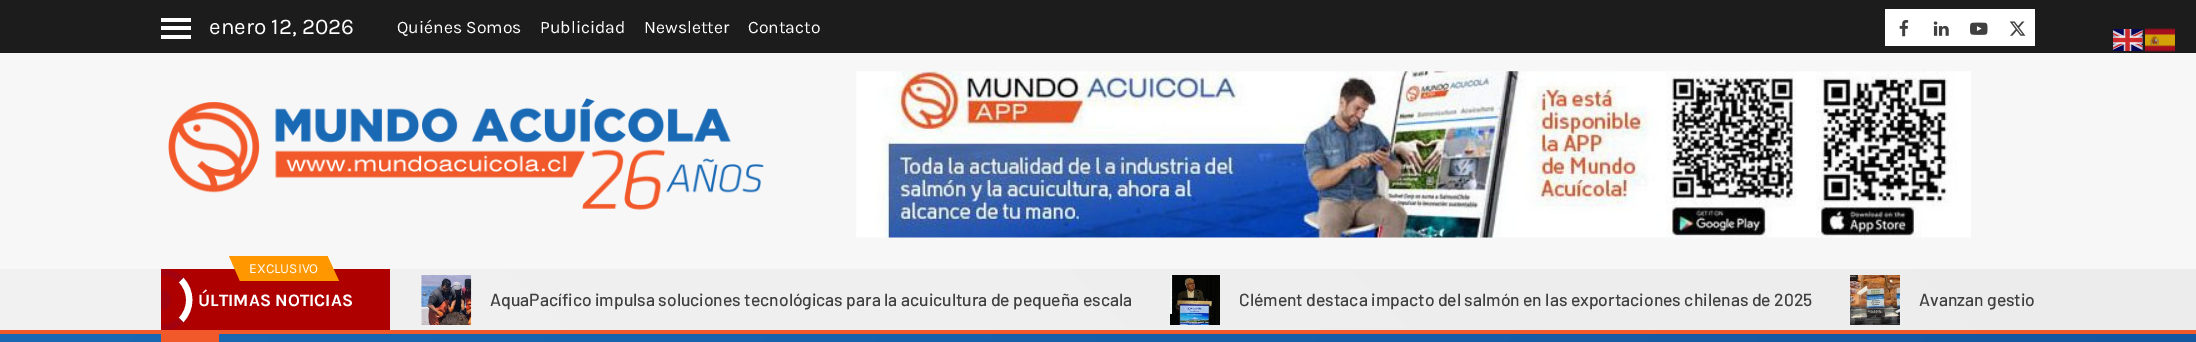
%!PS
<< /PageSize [2196 342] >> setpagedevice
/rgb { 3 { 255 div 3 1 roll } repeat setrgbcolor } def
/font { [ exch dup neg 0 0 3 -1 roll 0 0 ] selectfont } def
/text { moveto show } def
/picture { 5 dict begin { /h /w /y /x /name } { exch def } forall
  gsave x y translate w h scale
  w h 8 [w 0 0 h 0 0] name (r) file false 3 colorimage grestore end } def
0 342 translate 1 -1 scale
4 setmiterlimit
247 247 247 rgb
0 0 2196 342 rectfill
28 28 28 rgb
0 0 2196 53 rectfill
255 255 255 rgb
161 18 30 4 rectfill
161 26 30 4 rectfill
161 35 30 4 rectfill
1885 9 150 37 rectfill
(img_01.rgb) 1899 20 10 17 picture
(img_02.rgb) 1933 21 16 15 picture
(img_03.rgb) 1970 22 18 13 picture
(img_04.rgb) 2009 21 17 15 picture
(img_05.rgb) 168 98 596 112 picture
(img_06.rgb) 856 71 1115 167 picture
gsave 0 269 moveto 2196 0 rlineto 0 61 rlineto -2196 0 rlineto closepath clip newpath
<< /ShadingType 2 /ColorSpace /DeviceRGB /Coords [534 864 1663 -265] /Extend [true true] /Function << /FunctionType 2 /Domain [0 1] /C0 [0.945 0.945 0.945] /C1 [0.925 0.925 0.925] /N 1 >> >> shfill grestore
175 0 0 rgb
161 269 229 61 rectfill
255 152 0 rgb
240 256 88 25 rectfill
229 256 moveto 11 0 rlineto 0 25 rlineto closepath fill
339 281 moveto -11.5 0 rlineto 0 -25 rlineto closepath fill
255 255 255 rgb
6.2 setlinewidth
181 280 moveto 11 11 11 29 0 40 rcurveto stroke
gsave
161 269 229 61 rectclip
162 2 15 rgb
141.5 280 moveto 10.5 -10.5 29 -10.5 39.5 0 rcurveto 181 320 moveto -10.5 10.5 -29 10.5 -39.5 0 rcurveto stroke
grestore
162 2 15 rgb
161 290 moveto 5.5 0 10 4.5 10 10 rcurveto 0 5.5 -4.5 10 -10 10 rcurveto closepath fill
(img_07.rgb) 421 275 51 50 picture
(img_08.rgb) 1170 275 50 50 picture
(img_09.rgb) 1850 275 50 50 picture
gsave 0 334 moveto 2196 0 rlineto 0 8 rlineto -2196 0 rlineto closepath clip newpath
<< /ShadingType 2 /ColorSpace /DeviceRGB /Coords [628 -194 1568 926] /Extend [true true] /Function << /FunctionType 2 /Domain [0 1] /C0 [0.098 0.412 0.706] /C1 [0.075 0.341 0.627] /N 1 >> >> shfill grestore
241 89 42 rgb
0 330 2196 4 rectfill
161 334 58 8 rectfill
(img_10.rgb) 2113 29 30 22 picture
(img_11.rgb) 2145 28 30 24 picture
/Karla-Regular 22.5 font
255 255 255 rgb
(enero 12, 2026) 209 34 text
/Karla-Regular 17.5 font
(Quiénes Somos) 397 33 text
(Publicidad) 540 33 text
(Newsletter) 644 33 text
(Contacto) 748 33 text
/Karla-Regular 13.75 font
(EXCLUSIVO) 249 273 text
/Karla-Bold 17.5 font
(ÚLTIMAS NOTICIAS) 198 306 text
/Barlow-Medium 17.5 font
64 64 64 rgb
(AquaPacífico impulsa soluciones tecnológicas para la acuicultura de pequeña escala) 490 306 text
(Clément destaca impacto del salmón en las exportaciones chilenas de 2025) 1239 306 text
(Avanzan gestio) 1919 306 text
showpage
